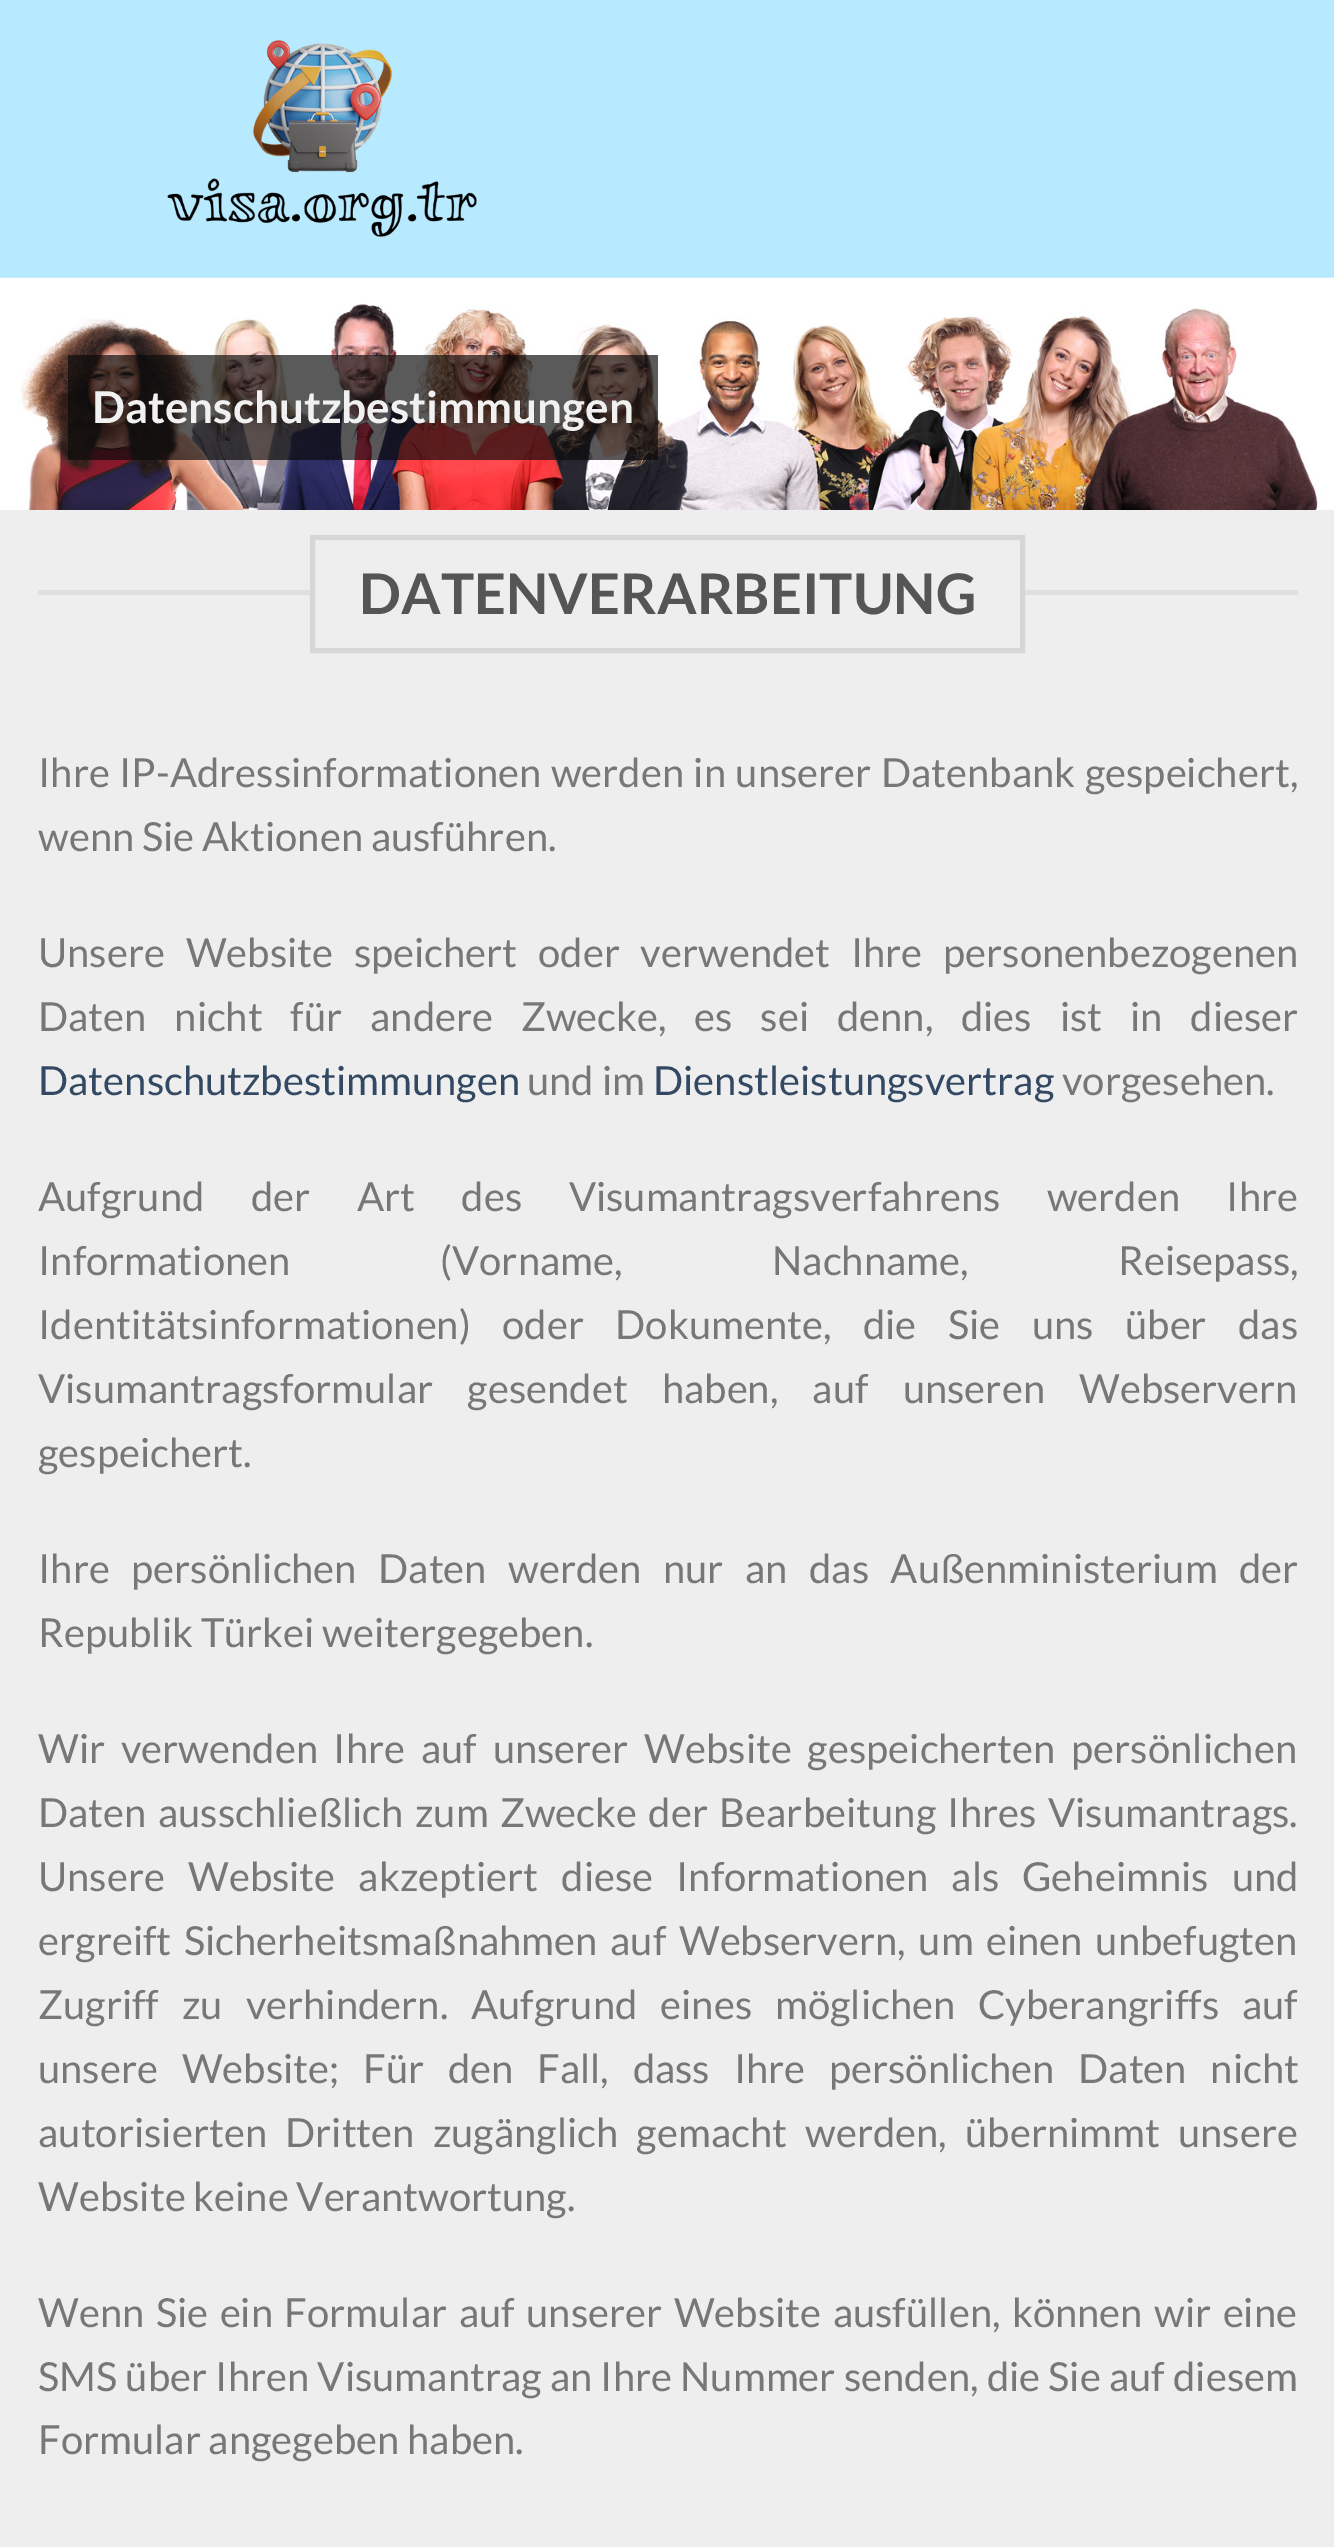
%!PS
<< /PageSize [1334 2547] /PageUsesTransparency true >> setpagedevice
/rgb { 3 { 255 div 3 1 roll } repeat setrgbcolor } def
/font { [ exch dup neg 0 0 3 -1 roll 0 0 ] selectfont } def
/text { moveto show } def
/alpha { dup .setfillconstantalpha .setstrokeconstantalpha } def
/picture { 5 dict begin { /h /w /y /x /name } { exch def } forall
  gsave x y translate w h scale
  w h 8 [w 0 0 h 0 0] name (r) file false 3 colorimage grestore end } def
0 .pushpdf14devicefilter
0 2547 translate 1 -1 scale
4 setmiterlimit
184 234 255 rgb
0 0 1334 2547 rectfill
(img_01.rgb) 167 39 310 198 picture
(img_02.rgb) 0 277 1334 233 picture
0.67 alpha
9 9 9 rgb
68 355 590 105 rectfill
1 alpha
238 238 238 rgb
0 510 1334 2037 rectfill
223 223 223 rgb
38 590 272 5 rectfill
214 214 214 rgb
5 setlinewidth
312.5 537.5 710 113 rectstroke
223 223 223 rgb
1025 590 273 5 rectfill
/Lato-Bold 44 font
241 241 241 rgb
(Datenschutzbestimmungen) 92 423 text
/Lato-Bold 56 font
85 85 85 rgb
(DATENVERARBEITUNG) 359 614 text
/Lato-Regular 40 font
119 119 119 rgb
38 787 moveto 1.75 0 32 (Ihre IP-Adressinformationen werden in unserer Datenbank gespeichert,) widthshow
(wenn Sie Aktionen ausführen.) 38 851 text
38 967 moveto 13 0 32 (Unsere Website speichert oder verwendet Ihre personenbezogenen) widthshow
38 1031 moveto 20.1 0 32 (Daten nicht für andere Zwecke, es sei denn, dies ist in dieser) widthshow
51 72 98 rgb
(Datenschutzbestimmungen) 38 1095 text
119 119 119 rgb
(und im) 527 1095 text
51 72 98 rgb
(Dienstleistungsvertrag) 653 1095 text
119 119 119 rgb
(vorgesehen.) 1062 1095 text
38 1211 moveto 38.75 0 32 (Aufgrund der Art des Visumantragsverfahrens werden Ihre) widthshow
38 1275 moveto 142 0 32 (Informationen \(Vorname, Nachname, Reisepass,) widthshow
38 1339 moveto 23.75 0 32 (Identitätsinformationen\) oder Dokumente, die Sie uns über das) widthshow
38 1403 moveto 26.5 0 32 (Visumantragsformular gesendet haben, auf unseren Webservern) widthshow
(gespeichert.) 38 1467 text
38 1583 moveto 13.75 0 32 (Ihre persönlichen Daten werden nur an das Außenministerium der) widthshow
(Republik Türkei weitergegeben.) 38 1647 text
38 1763 moveto 8 0 32 (Wir verwenden Ihre auf unserer Website gespeicherten persönlichen) widthshow
38 1827 moveto 3.75 0 32 (Daten ausschließlich zum Zwecke der Bearbeitung Ihres Visumantrags.) widthshow
38 1891 moveto 15.25 0 32 (Unsere Website akzeptiert diese Informationen als Geheimnis und) widthshow
38 1955 moveto 5 0 32 (ergreift Sicherheitsmaßnahmen auf Webservern, um einen unbefugten) widthshow
38 2019 moveto 15.25 0 32 (Zugriff zu verhindern. Aufgrund eines möglichen Cyberangriffs auf) widthshow
38 2083 moveto 16 0 32 (unsere Website; Für den Fall, dass Ihre persönlichen Daten nicht) widthshow
38 2147 moveto 10.5 0 32 (autorisierten Dritten zugänglich gemacht werden, übernimmt unsere) widthshow
(Website keine Verantwortung.) 38 2211 text
38 2327 moveto 3.75 0 32 (Wenn Sie ein Formular auf unserer Website ausfüllen, können wir eine) widthshow
38 2391 moveto 0.5 0 32 (SMS über Ihren Visumantrag an Ihre Nummer senden, die Sie auf diesem) widthshow
(Formular angegeben haben.) 38 2454 text
.poppdf14devicefilter showpage
